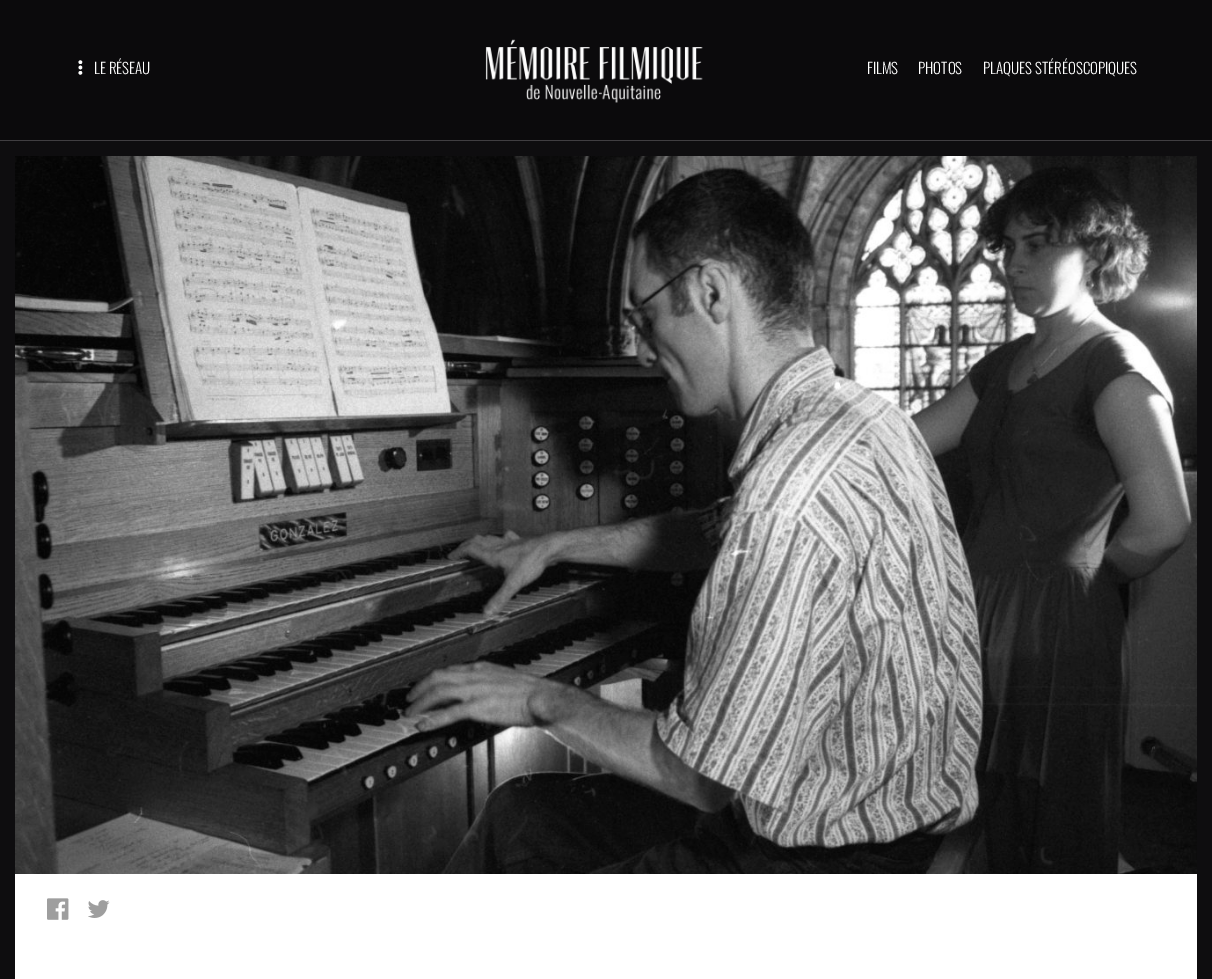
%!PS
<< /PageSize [1212 979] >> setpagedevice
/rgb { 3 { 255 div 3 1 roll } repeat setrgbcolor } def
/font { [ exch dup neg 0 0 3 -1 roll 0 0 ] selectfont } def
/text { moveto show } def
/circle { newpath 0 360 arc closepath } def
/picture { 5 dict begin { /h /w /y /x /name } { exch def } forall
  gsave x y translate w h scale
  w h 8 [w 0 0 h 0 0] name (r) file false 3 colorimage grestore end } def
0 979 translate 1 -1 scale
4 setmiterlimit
14 13 15 rgb
0 0 1212 979 rectfill
11 10 12 rgb
0 0 1212 140 rectfill
64 62 65 rgb
0 140 1212 1 rectfill
255 255 255 rgb
80.4 62.2 1.8 circle fill
80.4 67.5 1.8 circle fill
80.4 72.8 1.8 circle fill
(img_01.rgb) 485 39 218 64 picture
15 874 1182 105 rectfill
(img_02.rgb) 15 156 1182 718 picture
(img_03.rgb) 47 898 22 22 picture
(img_04.rgb) 88 900 22 18 picture
/Oswald-Light 15 font
(LE RÉSEAU) 94 74 text
(FILMS) 867 74 text
(PHOTOS) 918 74 text
(PLAQUES STÉRÉOSCOPIQUES) 983 74 text
showpage
